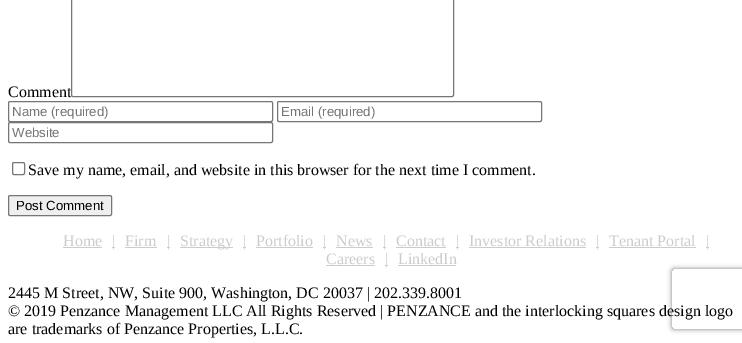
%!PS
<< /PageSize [742 343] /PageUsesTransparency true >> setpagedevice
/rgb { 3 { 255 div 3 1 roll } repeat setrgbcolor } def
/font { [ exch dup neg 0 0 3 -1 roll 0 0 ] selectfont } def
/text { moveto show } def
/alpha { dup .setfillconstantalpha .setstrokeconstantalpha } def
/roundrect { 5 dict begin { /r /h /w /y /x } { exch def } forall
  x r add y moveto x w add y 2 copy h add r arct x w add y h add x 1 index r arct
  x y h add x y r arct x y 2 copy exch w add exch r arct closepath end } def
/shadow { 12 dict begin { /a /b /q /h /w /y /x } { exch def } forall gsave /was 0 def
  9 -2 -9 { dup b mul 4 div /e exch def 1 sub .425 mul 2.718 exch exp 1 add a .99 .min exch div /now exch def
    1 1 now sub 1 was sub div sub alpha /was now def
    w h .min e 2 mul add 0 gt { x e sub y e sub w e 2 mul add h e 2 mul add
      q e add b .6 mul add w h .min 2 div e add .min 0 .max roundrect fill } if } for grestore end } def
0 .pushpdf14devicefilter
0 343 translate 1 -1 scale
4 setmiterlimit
255 255 255 rgb
0 0 742 343 rectfill
118 118 118 rgb
8.5 101.5 264 20 1.5 roundrect stroke
277.5 101.5 264 20 1.5 roundrect stroke
8.5 122.5 264 20 1.5 roundrect stroke
12.5 162.5 12 12 1.5 roundrect stroke
239 239 239 rgb
8.5 195.5 103 20 1.5 roundrect gsave fill grestore
118 118 118 rgb
stroke
204 204 204 rgb
63 247 39 1 rectfill
112 247 3 1 rectfill
125 247 32 1 rectfill
167 247 3 1 rectfill
180 247 53 1 rectfill
243 247 3 1 rectfill
256 247 57 1 rectfill
323 247 3 1 rectfill
336 247 37 1 rectfill
383 247 3 1 rectfill
396 247 50 1 rectfill
456 247 3 1 rectfill
469 247 117 1 rectfill
596 247 3 1 rectfill
609 247 87 1 rectfill
706 247 3 1 rectfill
326 265 49 1 rectfill
385 265 3 1 rectfill
398 265 58 1 rectfill
gsave
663 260 moveto 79 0 rlineto 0 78 rlineto -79 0 rlineto closepath 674 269 moveto 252 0 rlineto 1 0 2 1 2 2 rcurveto 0 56 rlineto 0 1 -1 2 -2 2 rcurveto -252 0 rlineto -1 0 -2 -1 -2 -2 rcurveto 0 -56 rlineto 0 -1 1 -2 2 -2 rcurveto closepath eoclip newpath
128 128 128 rgb
672 269 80 60 2 2.5 1 shadow
grestore
/LiberationSerif-Regular 16 font
0 0 0 rgb
(Comment) 8 97 text
118 118 118 rgb
71.5 -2.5 382 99 1.5 roundrect stroke
/LiberationSans-Regular 13.25 font
117 117 117 rgb
(Name \(required\)) 12 116 text
(Email \(required\)) 281 116 text
(Website) 12 137 text
/LiberationSerif-Regular 16 font
0 0 0 rgb
(Save my name, email, and website in this browser for the next time I comment.) 28 175 text
/LiberationSans-Regular 13.25 font
(Post Comment) 16 210 text
/LiberationSerif-Regular 16 font
204 204 204 rgb
(Home) 63 246 text
(|) 112 246 text
(Firm) 125 246 text
(|) 167 246 text
(Strategy) 180 246 text
(|) 243 246 text
(Portfolio) 256 246 text
(|) 323 246 text
(News) 336 246 text
(|) 383 246 text
(Contact) 396 246 text
(|) 456 246 text
(Investor Relations) 469 246 text
(|) 596 246 text
(Tenant Portal) 609 246 text
(|) 706 246 text
(Careers) 326 264 text
(|) 385 264 text
(LinkedIn) 398 264 text
0 0 0 rgb
(2445 M Street, NW, Suite 900, Washington, DC 20037 | 202.339.8001) 8 298 text
(© 2019 Penzance Management LLC All Rights Reserved | PENZANCE and the interlocking squares design logo) 8 316 text
(are trademarks of Penzance Properties, L.L.C.) 8 334 text
.poppdf14devicefilter showpage
